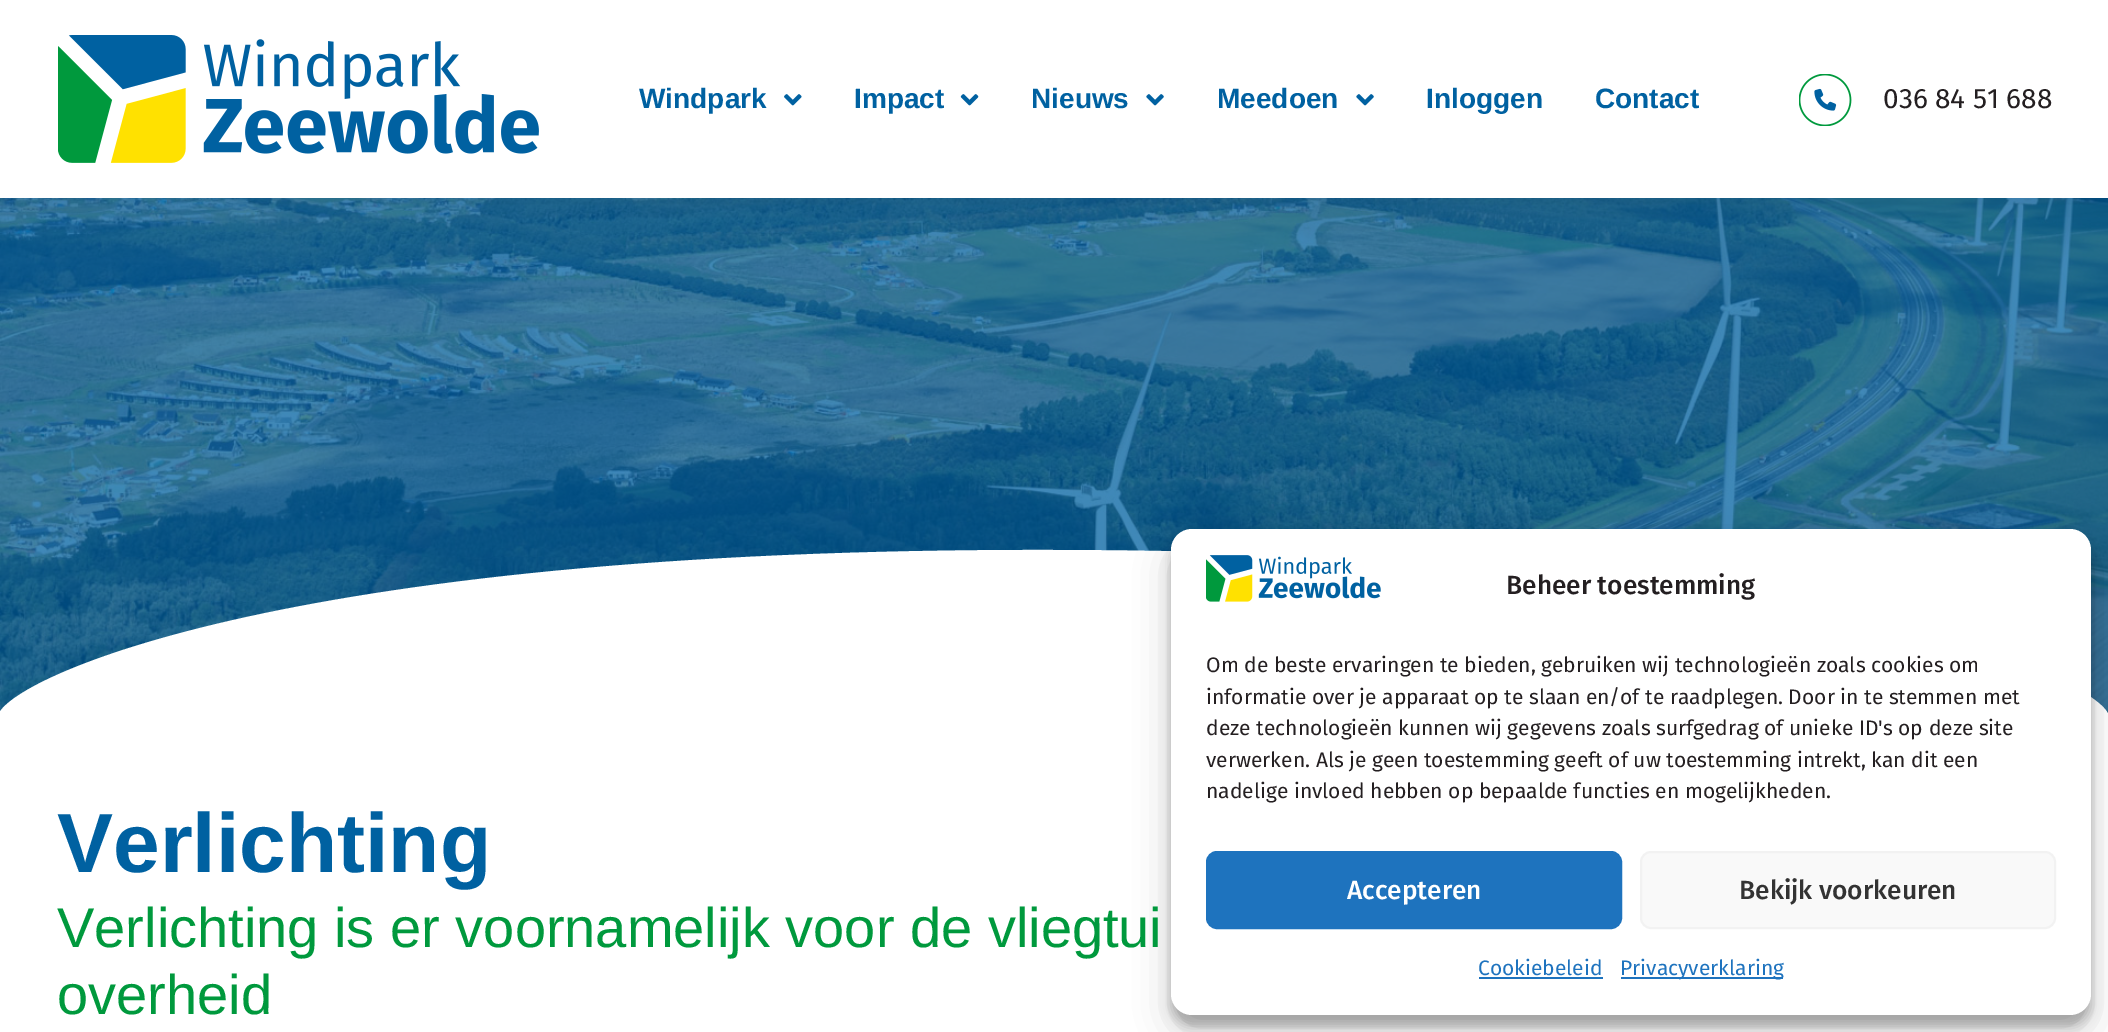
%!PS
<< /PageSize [2108 1032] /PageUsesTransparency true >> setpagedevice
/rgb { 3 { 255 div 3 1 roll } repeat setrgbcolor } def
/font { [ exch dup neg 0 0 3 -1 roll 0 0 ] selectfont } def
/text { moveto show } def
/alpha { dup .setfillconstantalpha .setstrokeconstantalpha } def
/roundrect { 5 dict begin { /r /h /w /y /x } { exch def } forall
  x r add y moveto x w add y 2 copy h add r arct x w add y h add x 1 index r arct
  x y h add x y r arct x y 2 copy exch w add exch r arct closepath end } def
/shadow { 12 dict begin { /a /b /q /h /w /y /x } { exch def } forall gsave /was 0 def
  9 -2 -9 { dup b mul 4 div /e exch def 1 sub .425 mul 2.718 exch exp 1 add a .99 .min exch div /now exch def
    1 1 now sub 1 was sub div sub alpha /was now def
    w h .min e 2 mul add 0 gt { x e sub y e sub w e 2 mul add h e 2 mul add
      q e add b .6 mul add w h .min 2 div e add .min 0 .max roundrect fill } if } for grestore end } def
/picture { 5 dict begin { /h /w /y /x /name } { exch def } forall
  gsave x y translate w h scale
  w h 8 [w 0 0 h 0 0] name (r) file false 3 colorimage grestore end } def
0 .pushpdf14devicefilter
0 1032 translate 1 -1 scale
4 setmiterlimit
255 255 255 rgb
0 0 2108 1032 rectfill
(img_06.rgb) 0 198 2108 516 picture
0 0 0 rgb
0 0 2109 198 0 26 0.1 shadow
255 255 255 rgb
0 0 2108 198 rectfill
(img_01.rgb) 58 35 481 128 picture
(img_02.rgb) 784 94 18 12 picture
(img_03.rgb) 960 94 19 12 picture
(img_04.rgb) 1146 94 18 12 picture
(img_04.rgb) 1356 94 18 12 picture
(img_05.rgb) 1799 74 53 52 picture
-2 717 moveto 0 8 rlineto 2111 0 rlineto 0 -8 rlineto -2 -33 -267 -166 -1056 -167 rcurveto -788 -2 -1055 135 -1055 167 rcurveto closepath fill
0 0 0 rgb
1171 539 920 487 21 5 0.23 shadow
1171 546 920 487 21 17.5 0.19 shadow
255 255 255 rgb
1171 529 920 486 21 roundrect fill
(img_07.rgb) 1206 555 175 47 picture
30 115 190 rgb
1207 852 414 76 10 roundrect gsave fill grestore
2 setlinewidth
stroke
249 249 249 rgb
1641 852 414 76 10 roundrect gsave fill grestore
242 242 242 rgb
stroke
30 115 190 rgb
1479 977 124 2 rectfill
1621 977 162 2 rectfill
/LiberationSans-Bold 28 font
0 97 161 rgb
(Windpark) 639 108 text
(Impact) 854 108 text
(Nieuws) 1031 108 text
(Meedoen) 1217 108 text
(Inloggen) 1426 108 text
(Contact) 1595 108 text
/FiraSans-Regular 28 font
36 31 33 rgb
(036 84 51 688) 1883 108 text
/LiberationSans-Bold 84 font
0 97 161 rgb
(Verlichting) 57 872 text
/LiberationSans-Regular 56 font
0 153 61 rgb
(Verlichting is er voornamelijk voor de vliegtui) 57 947 text
(overheid) 57 1014 text
/FiraSans-Medium 26.25 font
36 31 33 rgb
(Beheer toestemming) 1506 594 text
/FiraSans-Regular 21 font
(Om de beste ervaringen te bieden, gebruiken wij technologieën zoals cookies om) 1206 672 text
(informatie over je apparaat op te slaan en/of te raadplegen. Door in te stemmen met) 1206 704 text
(deze technologieën kunnen wij gegevens zoals surfgedrag of unieke ID's op deze site) 1206 735 text
(verwerken. Als je geen toestemming geeft of uw toestemming intrekt, kan dit een) 1206 767 text
(nadelige invloed hebben op bepaalde functies en mogelijkheden.) 1206 798 text
/FiraSans-Medium 26.25 font
255 255 255 rgb
(Accepteren) 1347 899 text
51 51 51 rgb
(Bekijk voorkeuren) 1739 899 text
/FiraSans-Regular 21 font
30 115 190 rgb
(Cookiebeleid) 1478 975 text
(Privacyverklaring) 1620 975 text
.poppdf14devicefilter showpage
